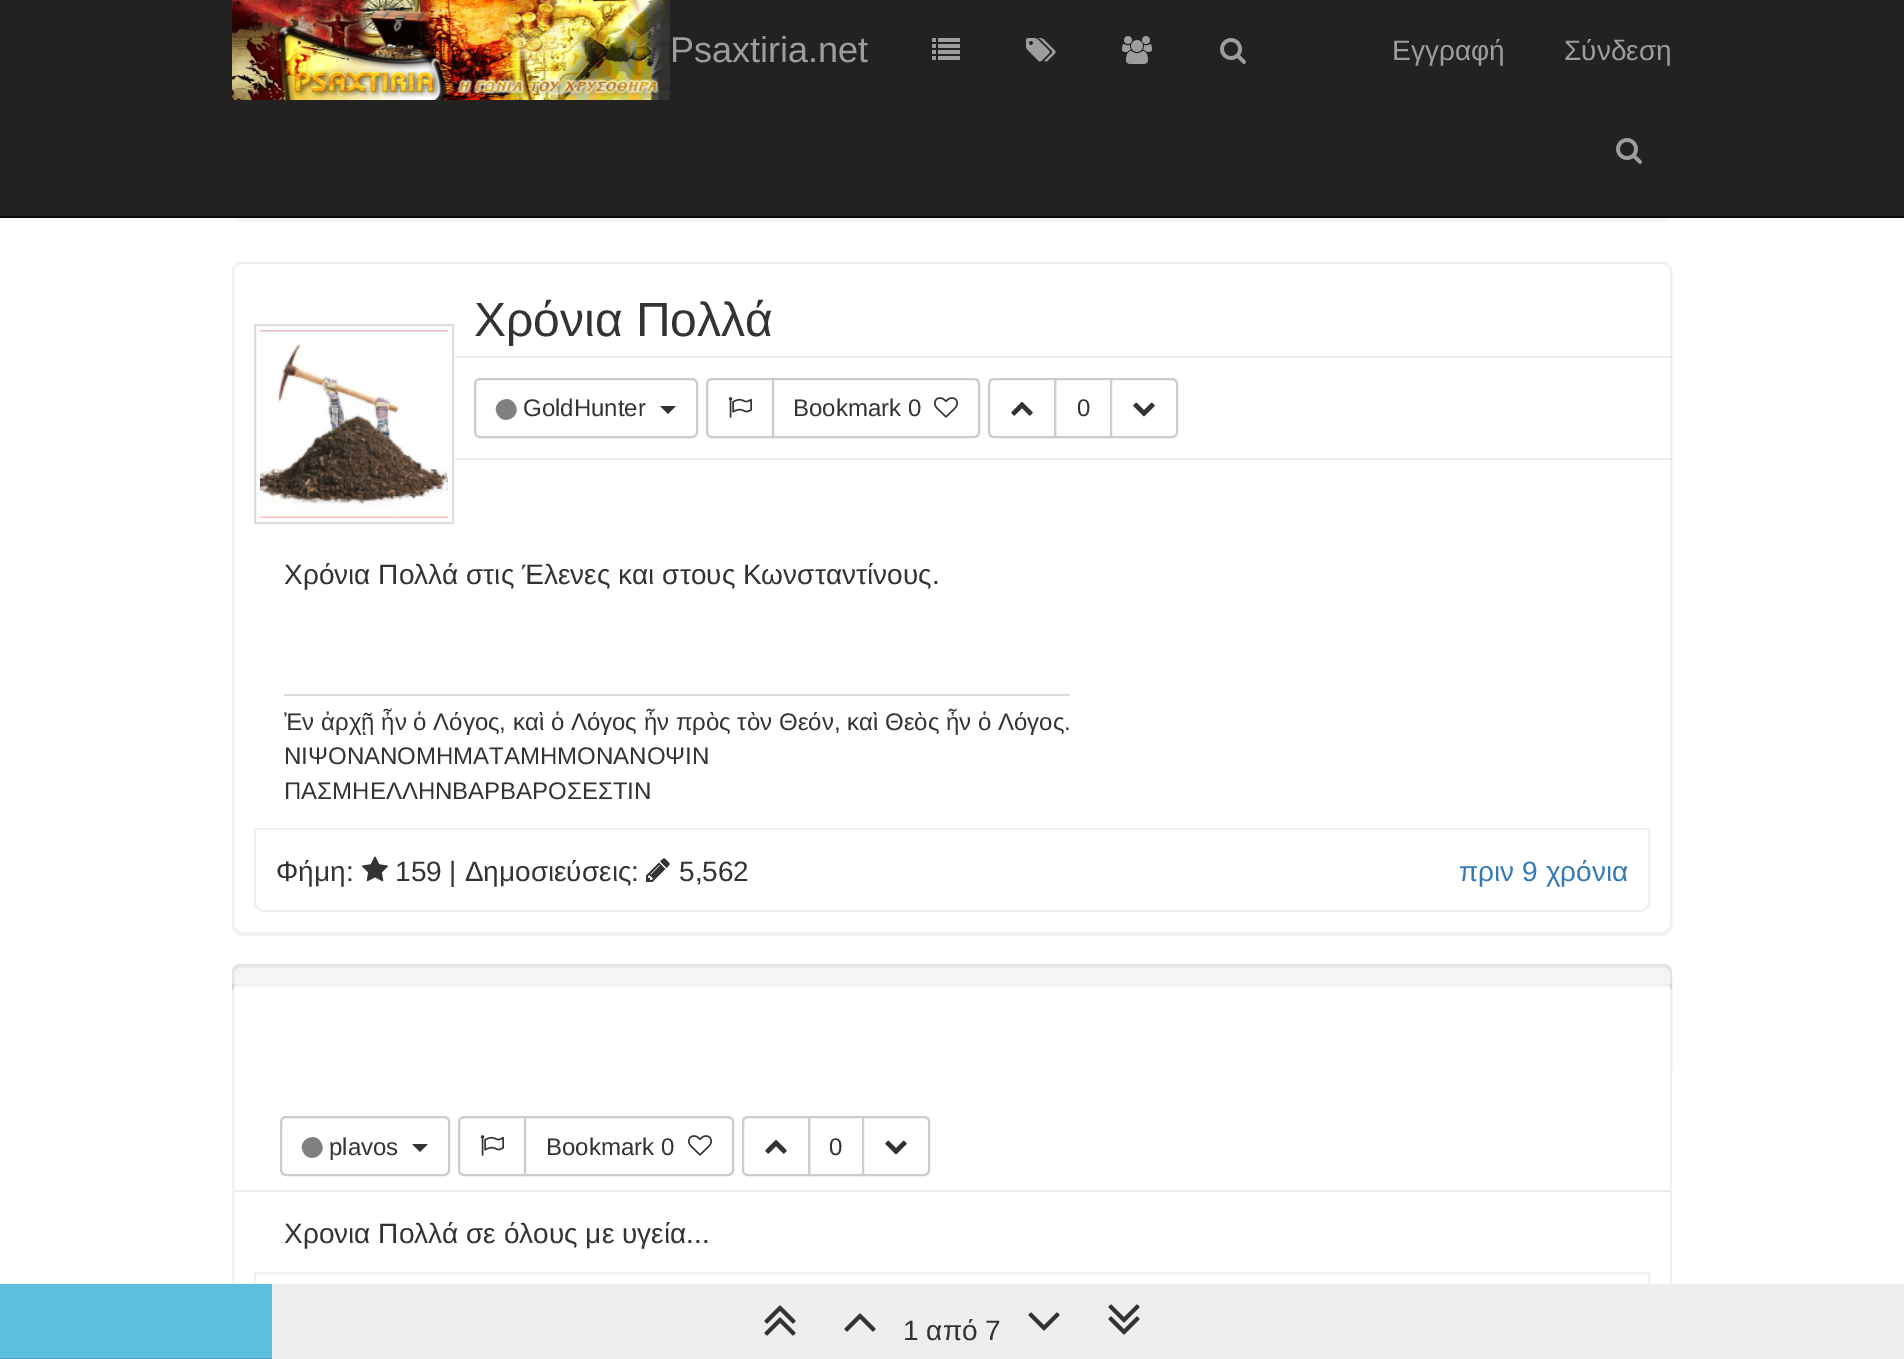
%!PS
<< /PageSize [1904 1359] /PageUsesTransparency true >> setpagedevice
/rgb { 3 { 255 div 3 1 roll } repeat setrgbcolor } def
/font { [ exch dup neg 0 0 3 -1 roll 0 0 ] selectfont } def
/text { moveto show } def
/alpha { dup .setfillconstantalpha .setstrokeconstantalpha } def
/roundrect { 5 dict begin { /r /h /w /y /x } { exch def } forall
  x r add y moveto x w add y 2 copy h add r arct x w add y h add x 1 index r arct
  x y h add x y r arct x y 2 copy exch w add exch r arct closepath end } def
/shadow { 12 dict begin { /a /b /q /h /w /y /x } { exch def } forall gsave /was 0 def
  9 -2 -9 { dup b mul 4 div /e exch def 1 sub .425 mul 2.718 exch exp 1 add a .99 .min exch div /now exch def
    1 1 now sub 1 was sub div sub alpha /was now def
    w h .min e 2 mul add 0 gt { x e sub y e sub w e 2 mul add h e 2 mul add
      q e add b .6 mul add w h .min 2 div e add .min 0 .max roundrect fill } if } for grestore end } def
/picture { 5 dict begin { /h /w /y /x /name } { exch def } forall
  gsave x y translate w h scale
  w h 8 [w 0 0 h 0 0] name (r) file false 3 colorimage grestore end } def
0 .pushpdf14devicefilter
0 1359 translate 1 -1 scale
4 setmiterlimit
255 255 255 rgb
0 0 1904 1359 rectfill
245 245 245 rgb
232 140 1440 82 8 roundrect fill
34 34 34 rgb
0 0 1904 216 rectfill
8 8 8 rgb
0 216 1904 2 rectfill
(img_01.rgb) 232 0 438 100 picture
(img_02.rgb) 932 38 28 22 picture
(img_03.rgb) 1026 38 30 24 picture
(img_04.rgb) 1122 36 30 28 picture
(img_05.rgb) 1220 38 26 26 picture
(img_05.rgb) 1616 138 26 26 picture
0 0 0 rgb
232 264 1440 672 10 1 0.05 shadow
255 255 255 rgb
233 263 1438 670 9 roundrect gsave fill grestore
240 240 240 rgb
2 setlinewidth
stroke
0.06 alpha
0 0 0 rgb
438 356 moveto 1234 0 rlineto 0 2 rlineto -1232 0 rlineto closepath fill
1672 460 moveto -1234 0 rlineto 2 -2 rlineto 1232 0 rlineto closepath fill
1 alpha
255 255 255 rgb
438 356 14 104 rectfill
221 221 221 rgb
255 325 198 198 rectstroke
(img_06.rgb) 260 330 188 188 picture
204 204 204 rgb
475 379 222 58 5 roundrect stroke
128 128 128 rgb
515 404.5 moveto 7 11.5 -11 22 -17.5 10 rcurveto -7 -11.5 11 -22 17.5 -10 rcurveto closepath fill
51 51 51 rgb
660 406 moveto 16 0 rlineto -8 8 rlineto closepath fill
204 204 204 rgb
712 379 moveto 61 0 rlineto 0 58 rlineto -61 0 rlineto -3 0 -5 -2 -5 -5 rcurveto 0 -48 rlineto 0 -3 2 -5 5 -5 rcurveto closepath stroke
(img_07.rgb) 728 397 24 21 picture
255 255 255 rgb
773 379 moveto 201 0 rlineto 3 0 5 2 5 5 rcurveto 0 48 rlineto 0 3 -2 5 -5 5 rcurveto -201 0 rlineto closepath gsave fill grestore
204 204 204 rgb
stroke
(img_08.rgb) 934 397 24 21 picture
994 379 moveto 61 0 rlineto 0 58 rlineto -61 0 rlineto -3 0 -5 -2 -5 -5 rcurveto 0 -48 rlineto 0 -3 2 -5 5 -5 rcurveto closepath stroke
(img_09.rgb) 1011 401 22 15 picture
1055 379 56 58 rectstroke
255 255 255 rgb
1111 379 moveto 61 0 rlineto 3 0 5 2 5 5 rcurveto 0 48 rlineto 0 3 -2 5 -5 5 rcurveto -61 0 rlineto closepath gsave fill grestore
204 204 204 rgb
stroke
(img_10.rgb) 1133 402 22 15 picture
221 221 221 rgb
284 694 786 2 rectfill
240 240 240 rgb
255 829 moveto 1394 0 rlineto 0 73 rlineto 0 5 -4 9 -9 9 rcurveto -1376 0 rlineto -5 0 -9 -4 -9 -9 rcurveto closepath stroke
(img_11.rgb) 362 856 26 26 picture
(img_12.rgb) 646 858 24 24 picture
245 245 245 rgb
232 964 1440 112 8 roundrect fill
233 233 233 rgb
240 968 moveto 1424 0 rlineto 3 0 6 3 6 6 rcurveto 0 -4 -1 -8 -6 -8 rcurveto -1424 0 rlineto -5 0 -6 4 -6 8 rcurveto 0 -3 3 -6 6 -6 rcurveto closepath fill
227 227 227 rgb
233 965 1438 110 7 roundrect stroke
255 255 255 rgb
232 984 1440 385 10 roundrect fill
0.06 alpha
0 0 0 rgb
233 985 1438 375 rectstroke
1 alpha
235 235 235 rgb
234 1190 1436 2 rectfill
204 204 204 rgb
281 1117 168 58 5 roundrect stroke
128 128 128 rgb
321 1142.5 moveto 7 11.5 -11 22 -17.5 10 rcurveto -7 -11.5 11 -22 17.5 -10 rcurveto closepath fill
51 51 51 rgb
412 1144 moveto 16 0 rlineto -8 8 rlineto closepath fill
204 204 204 rgb
464 1117 moveto 61 0 rlineto 0 58 rlineto -61 0 rlineto -3 0 -5 -2 -5 -5 rcurveto 0 -48 rlineto 0 -3 2 -5 5 -5 rcurveto closepath stroke
(img_07.rgb) 480 1135 24 21 picture
255 255 255 rgb
525 1117 moveto 203 0 rlineto 3 0 5 2 5 5 rcurveto 0 48 rlineto 0 3 -2 5 -5 5 rcurveto -203 0 rlineto closepath gsave fill grestore
204 204 204 rgb
stroke
(img_08.rgb) 688 1135 24 21 picture
748 1117 moveto 61 0 rlineto 0 58 rlineto -61 0 rlineto -3 0 -5 -2 -5 -5 rcurveto 0 -48 rlineto 0 -3 2 -5 5 -5 rcurveto closepath stroke
(img_09.rgb) 765 1139 22 15 picture
809 1117 54 58 rectstroke
255 255 255 rgb
863 1117 moveto 61 0 rlineto 3 0 5 2 5 5 rcurveto 0 48 rlineto 0 3 -2 5 -5 5 rcurveto -61 0 rlineto closepath gsave fill grestore
204 204 204 rgb
stroke
(img_10.rgb) 885 1140 22 15 picture
240 240 240 rgb
255 1273 1394 82 rectstroke
238 238 238 rgb
272 1284 1632 75 rectfill
91 192 222 rgb
0 1284 272 74 rectfill
77 163 189 rgb
0 1358 272 1 rectfill
(img_13.rgb) 764 1305 32 31 picture
(img_14.rgb) 844 1313 32 19 picture
(img_15.rgb) 1028 1312 32 19 picture
(img_16.rgb) 1108 1304 32 31 picture
/LiberationSans-Regular 36 font
157 157 157 rgb
(Psaxtiria.net) 670 62 text
/LiberationSans-Regular 28 font
(Εγγραφή) 1392 60 text
(Σύνδεση) 1564 60 text
/LiberationSans-Regular 48 font
51 51 51 rgb
(Χρόνια Πολλά) 474 336 text
/LiberationSans-Regular 24 font
(GoldHunter) 523 416 text
(Bookmark 0) 793 416 text
(0) 1077 416 text
/LiberationSans-Regular 28 font
(Χρόνια Πολλά στις Έλενες και στους Κωνσταντίνους.) 284 584 text
/LiberationSans-Regular 24 font
(Ἐν ἀρχῇ ἦν ὁ Λόγος, καὶ ὁ Λόγος ἦν πρὸς τὸν Θεόν, καὶ Θεὸς ἦν ὁ Λόγος.) 284 730 text
(ΝΙΨΟΝΑΝΟΜΗΜΑΤΑΜΗΜΟΝΑΝΟΨΙΝ) 284 764 text
(ΠΑΣΜΗΕΛΛΗΝΒΑΡΒΑΡΟΣΕΣΤΙΝ) 284 799 text
/LiberationSans-Regular 28 font
(Φήμη:) 276 881 text
(159 | Δημοσιεύσεις:) 395 881 text
(5,562) 679 881 text
51 122 183 rgb
(πριν 9 χρόνια) 1459 881 text
/LiberationSans-Regular 24 font
51 51 51 rgb
(plavos) 329 1155 text
(Bookmark 0) 546 1155 text
(0) 829 1155 text
/LiberationSans-Regular 28 font
(Χρονια Πολλά σε όλους με υγεία...) 284 1243 text
(1 από 7) 903 1340 text
.poppdf14devicefilter showpage
